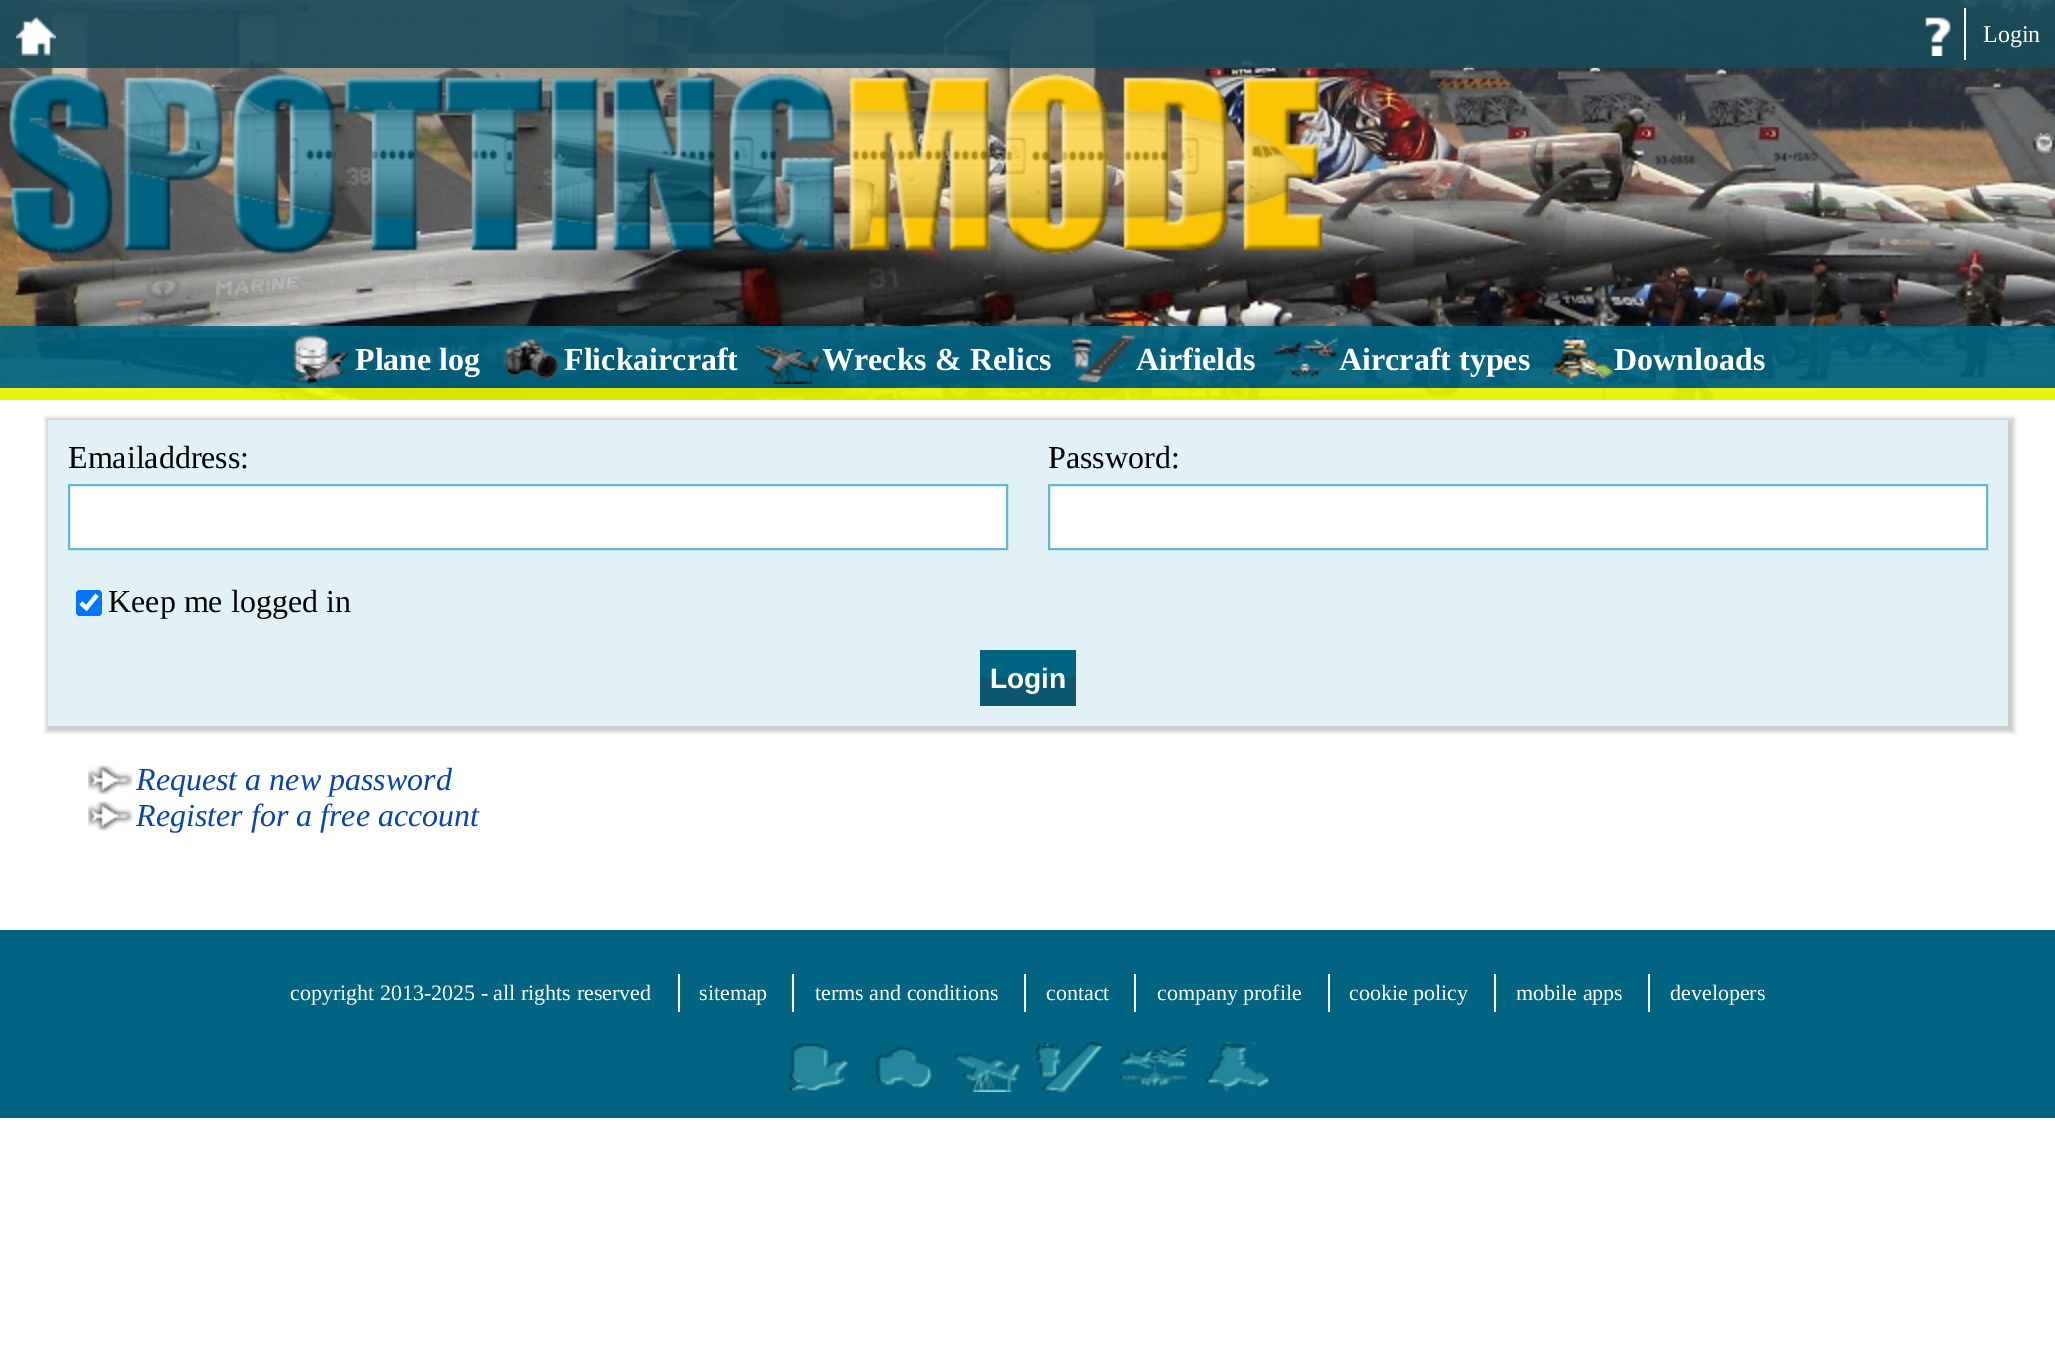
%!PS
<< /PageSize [2055 1370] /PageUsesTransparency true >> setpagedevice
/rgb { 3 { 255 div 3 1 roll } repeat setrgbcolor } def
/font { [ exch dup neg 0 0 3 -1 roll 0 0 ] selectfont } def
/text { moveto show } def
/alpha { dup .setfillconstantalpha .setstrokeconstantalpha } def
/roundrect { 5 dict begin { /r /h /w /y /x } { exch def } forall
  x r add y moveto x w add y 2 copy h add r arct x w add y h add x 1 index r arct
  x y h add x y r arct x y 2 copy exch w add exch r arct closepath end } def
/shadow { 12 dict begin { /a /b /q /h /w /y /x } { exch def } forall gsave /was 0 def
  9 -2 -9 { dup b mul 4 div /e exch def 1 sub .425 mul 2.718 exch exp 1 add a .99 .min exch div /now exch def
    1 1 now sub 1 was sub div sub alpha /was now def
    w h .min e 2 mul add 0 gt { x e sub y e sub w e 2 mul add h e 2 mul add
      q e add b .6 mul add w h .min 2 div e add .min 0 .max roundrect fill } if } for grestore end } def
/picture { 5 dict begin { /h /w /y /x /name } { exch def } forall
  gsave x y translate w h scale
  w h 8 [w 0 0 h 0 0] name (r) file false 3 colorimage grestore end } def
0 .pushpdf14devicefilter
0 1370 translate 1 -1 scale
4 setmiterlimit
255 255 255 rgb
0 0 2055 1370 rectfill
(img_01.rgb) 0 0 2055 400 picture
0.9 alpha
238 255 0 rgb
0 388 2055 12 rectfill
24 74 89 rgb
0 0 2055 68 rectfill
1 alpha
(img_02.rgb) 16 16 40 40 picture
(img_03.rgb) 1925 17 26 39 picture
255 255 255 rgb
1964 8 2 52 rectfill
(img_04.rgb) 9 73 1315 182 picture
0.9 alpha
0 100 130 rgb
0 326 2055 62 rectfill
1 alpha
(img_05.rgb) 291 335 60 49 picture
(img_06.rgb) 503 338 57 43 picture
(img_07.rgb) 756 345 66 39 picture
(img_08.rgb) 1070 334 66 50 picture
(img_09.rgb) 1272 337 66 42 picture
(img_10.rgb) 1549 334 65 50 picture
0 0 0 rgb
46 418 1968 314 0 2 0.2 shadow
225 241 246 rgb
48 420 1960 306 rectfill
255 255 255 rgb
69 485 moveto 938 0 rlineto 0 64 rlineto -938 0 rlineto closepath gsave fill grestore
103 182 207 rgb
2 setlinewidth
stroke
255 255 255 rgb
1049 485 moveto 938 0 rlineto 0 64 rlineto -938 0 rlineto closepath gsave fill grestore
103 182 207 rgb
stroke
0 117 255 rgb
76 590 26 26 4 roundrect fill
255 255 255 rgb
4.2 setlinewidth
81 603 moveto 5.5 5 rlineto 10.5 -13 rlineto stroke
0 100 130 rgb
980 650 96 28 rectfill
12 87 110 rgb
980 678 96 28 rectfill
(img_11.rgb) 88 765 45 30 picture
(img_12.rgb) 88 801 45 30 picture
0 100 130 rgb
0 930 2055 188 rectfill
255 255 255 rgb
678 974 2 38 rectfill
792 974 2 38 rectfill
1024 974 2 38 rectfill
1134 974 2 38 rectfill
1328 974 2 38 rectfill
1494 974 2 38 rectfill
1648 974 2 38 rectfill
(img_13.rgb) 789 1043 60 48 picture
(img_14.rgb) 875 1045 58 44 picture
(img_15.rgb) 954 1053 66 39 picture
(img_16.rgb) 1036 1042 66 50 picture
(img_17.rgb) 1120 1045 66 42 picture
(img_18.rgb) 1204 1042 66 50 picture
/LiberationSerif-Regular 24 font
(Login) 1983 42 text
/LiberationSerif-Bold 32 font
(Plane log) 355 370 text
(Flickaircraft) 564 370 text
(Wrecks & Relics) 822 370 text
(Airfields) 1136 370 text
(Aircraft types) 1339 370 text
(Downloads) 1614 370 text
/LiberationSerif-Regular 32 font
0 0 0 rgb
(Emailaddress:) 68 468 text
(Password:) 1048 468 text
(Keep me logged in) 108 612 text
/LiberationSans-Bold 28 font
255 255 255 rgb
(Login) 990 688 text
/LiberationSerif-Italic 32 font
6 69 173 rgb
(Request a new password) 136 790 text
(Register for a free account) 136 826 text
/LiberationSerif-Regular 22 font
255 255 255 rgb
(copyright 2013-2025 - all rights reserved) 290 1000 text
(sitemap) 699 1000 text
(terms and conditions) 815 1000 text
(contact) 1046 1000 text
(company profile) 1157 1000 text
(cookie policy) 1349 1000 text
(mobile apps) 1516 1000 text
(developers) 1670 1000 text
.poppdf14devicefilter showpage
